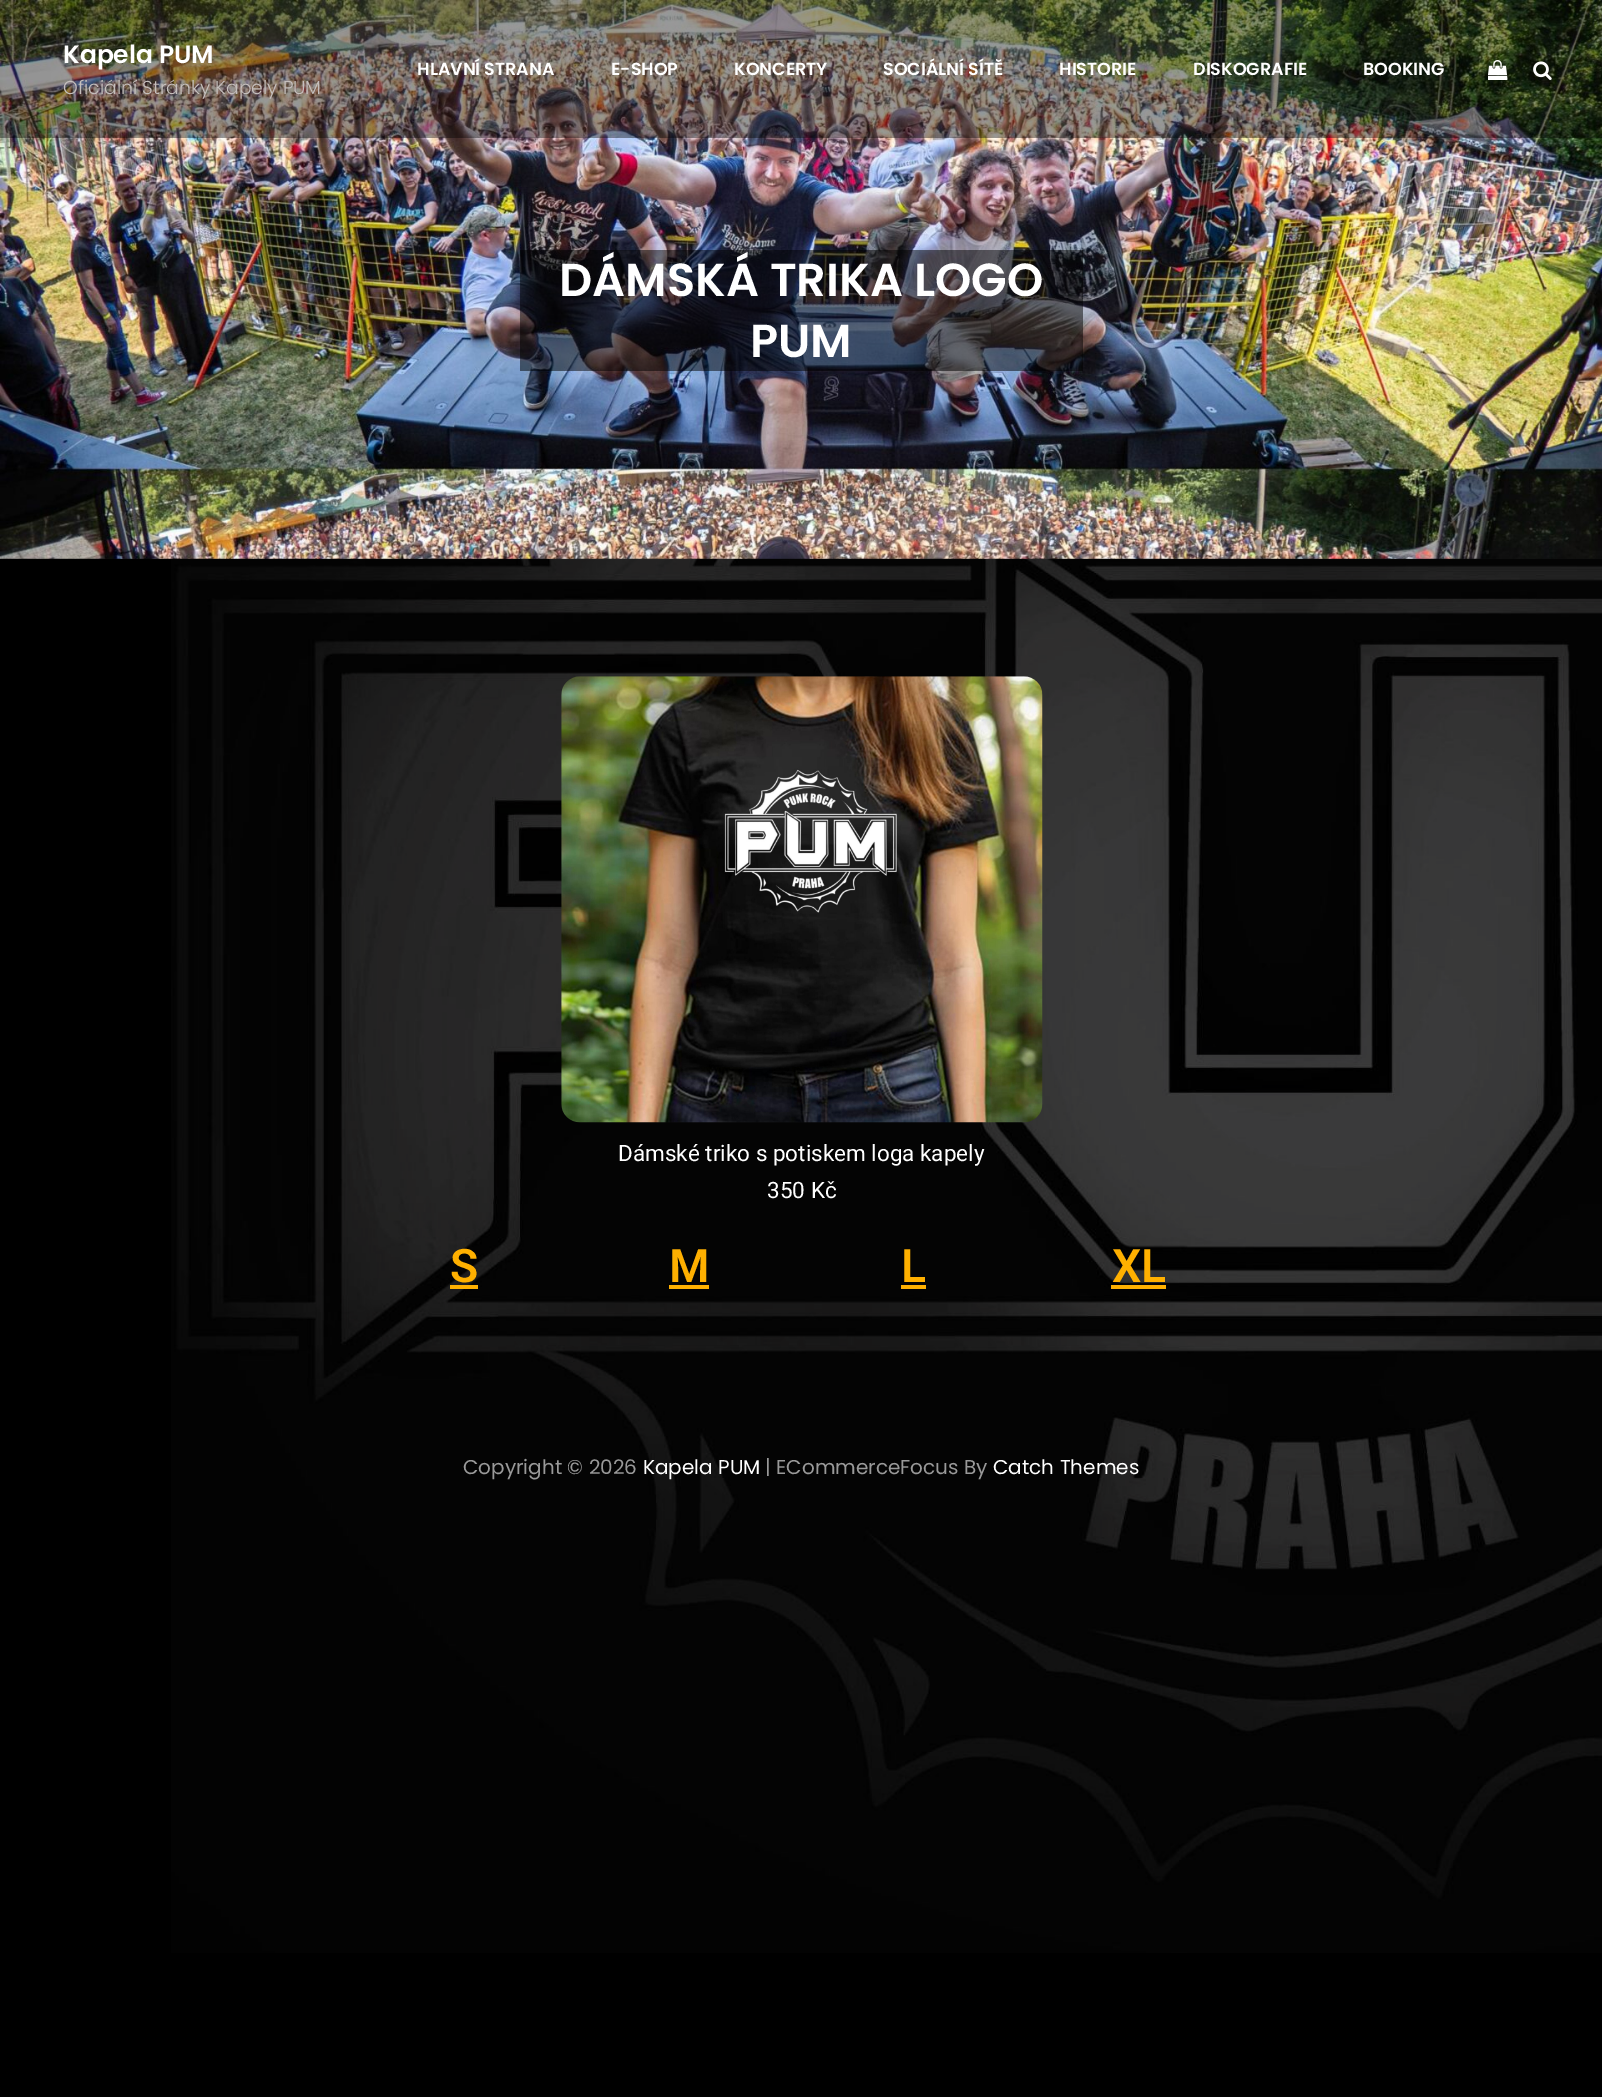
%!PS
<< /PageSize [1602 2097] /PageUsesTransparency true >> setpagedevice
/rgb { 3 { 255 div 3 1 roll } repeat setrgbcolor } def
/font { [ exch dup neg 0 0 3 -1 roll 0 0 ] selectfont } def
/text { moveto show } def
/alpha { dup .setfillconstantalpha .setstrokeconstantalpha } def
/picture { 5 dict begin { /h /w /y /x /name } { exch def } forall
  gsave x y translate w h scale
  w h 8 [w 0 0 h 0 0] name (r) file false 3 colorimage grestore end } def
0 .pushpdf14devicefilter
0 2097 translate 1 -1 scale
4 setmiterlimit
0 0 0 rgb
0 0 1602 2097 rectfill
(img_01.rgb) 171 558 1431 1395 picture
(img_04.rgb) 0 0 1602 559 picture
0.4 alpha
0 0 1602 138 rectfill
1 alpha
(img_02.rgb) 1488 60 20 20 picture
(img_03.rgb) 1533 61 19 19 picture
0.5 alpha
520 250 563 121 rectfill
1 alpha
(img_05.rgb) 561 676 482 447 picture
255 176 0 rgb
450 1285 28 4 rectfill
669 1285 40 4 rectfill
901 1285 25 4 rectfill
1111 1285 55 4 rectfill
/Poppins-SemiBold 25 font
255 255 255 rgb
(Kapela PUM) 63 63 text
/Poppins-Light 18.75 font
197 191 189 rgb
(Oficiální Stránky Kapely PUM) 63 94 text
/Poppins-SemiBold 17.5 font
255 255 255 rgb
(HLAVNÍ STRANA) 417 75 text
(E-SHOP) 611 75 text
(KONCERTY) 734 75 text
(SOCIÁLNÍ SÍTĚ) 883 75 text
(HISTORIE) 1059 75 text
(DISKOGRAFIE) 1193 75 text
(BOOKING) 1363 75 text
/Poppins-SemiBold 46.25 font
(DÁMSKÁ TRIKA LOGO) 559 296 text
(PUM) 750 357 text
/Roboto-Regular 22.5 font
(Dámské triko s potiskem loga kapely) 618 1161 text
(350 Kč) 767 1198 text
/Roboto-SemiBold 46.25 font
255 176 0 rgb
(S) 450 1282 text
(M) 669 1282 text
(L) 901 1282 text
(XL) 1112 1282 text
/Poppins-Regular 20 font
153 153 153 rgb
(Copyright © 2026) 463 1474 text
255 255 255 rgb
(Kapela PUM) 643 1474 text
153 153 153 rgb
(| ECommerceFocus By) 765 1474 text
255 255 255 rgb
(Catch Themes) 993 1474 text
.poppdf14devicefilter showpage
